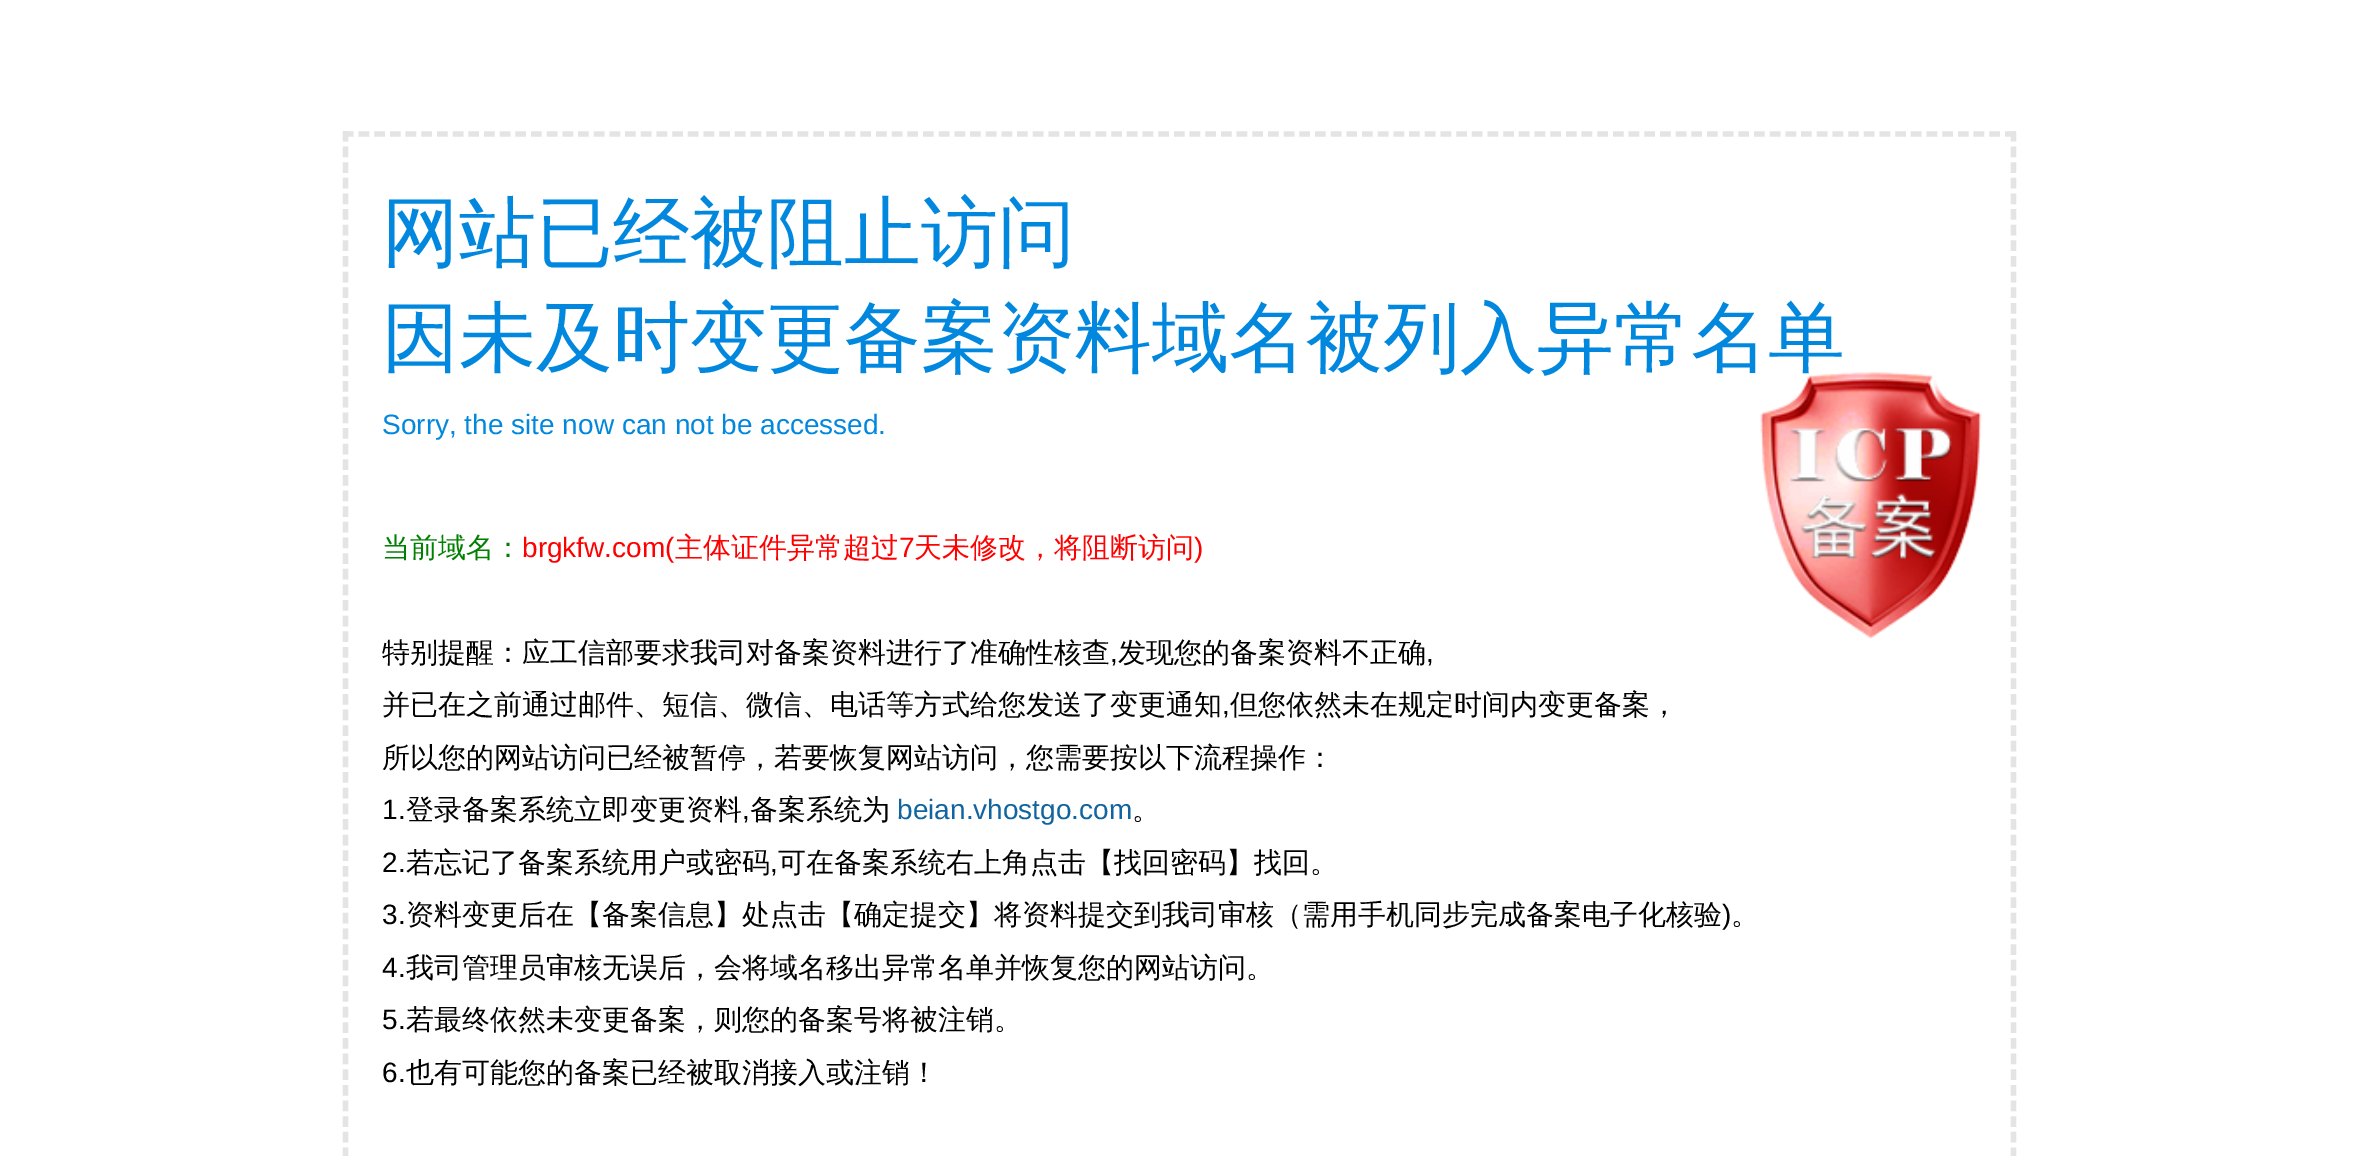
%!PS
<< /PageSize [2356 1156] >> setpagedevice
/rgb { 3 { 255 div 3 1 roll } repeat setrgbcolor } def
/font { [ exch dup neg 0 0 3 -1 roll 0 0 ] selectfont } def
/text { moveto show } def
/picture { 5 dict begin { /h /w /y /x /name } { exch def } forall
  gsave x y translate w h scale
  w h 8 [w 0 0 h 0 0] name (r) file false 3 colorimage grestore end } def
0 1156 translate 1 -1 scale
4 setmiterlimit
255 255 255 rgb
0 0 2356 1156 rectfill
(img_01.rgb) 1760 372 222 267 picture
228 228 228 rgb
5.2 setlinewidth
[10.5 5.18] 0 setdash
343 134 moveto 1673 0 rlineto stroke
[10.5 5.14] 0 setdash
2013.5 131 moveto 0 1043 rlineto stroke
345.5 131 moveto 0 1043 rlineto stroke
/WenQuanYiZenHei-Medium 77 font
1 136 222 rgb
(网站已经被阻止访问) 382 259 text
(因未及时变更备案资料域名被列入异常名单) 382 364 text
/LiberationSans-Regular 28 font
(Sorry, the site now can not be accessed.) 382 434 text
/WenQuanYiZenHei-Medium 28 font
0 128 0 rgb
(当前域名：) 382 557 text
/LiberationSans-Regular 28 font
255 0 0 rgb
(brgkfw.com\() 522 557 text
/WenQuanYiZenHei-Medium 28 font
(主体证件异常超过) 675 557 text
/LiberationSans-Regular 28 font
(7) 899 557 text
/WenQuanYiZenHei-Medium 28 font
(天未修改，将阻断访问) 914 557 text
/LiberationSans-Regular 28 font
(\)) 1194 557 text
/WenQuanYiZenHei-Medium 28 font
0 0 0 rgb
(特别提醒：应工信部要求我司对备案资料进行了准确性核查) 382 662 text
/LiberationSans-Regular 28 font
(,) 1110 662 text
/WenQuanYiZenHei-Medium 28 font
(发现您的备案资料不正确) 1118 662 text
/LiberationSans-Regular 28 font
(,) 1426 662 text
/WenQuanYiZenHei-Medium 28 font
(并已在之前通过邮件、短信、微信、电话等方式给您发送了变更通知) 382 714 text
/LiberationSans-Regular 28 font
(,) 1222 714 text
/WenQuanYiZenHei-Medium 28 font
(但您依然未在规定时间内变更备案，) 1230 714 text
(所以您的网站访问已经被暂停，若要恢复网站访问，您需要按以下流程操作：) 382 767 text
/LiberationSans-Regular 28 font
(1.) 382 819 text
/WenQuanYiZenHei-Medium 28 font
(登录备案系统立即变更资料) 406 819 text
/LiberationSans-Regular 28 font
(,) 742 819 text
/WenQuanYiZenHei-Medium 28 font
(备案系统为) 750 819 text
/LiberationSans-Regular 28 font
16 100 160 rgb
(beian.vhostgo.com) 897 819 text
/WenQuanYiZenHei-Medium 28 font
0 0 0 rgb
(。) 1132 819 text
/LiberationSans-Regular 28 font
(2.) 382 872 text
/WenQuanYiZenHei-Medium 28 font
(若忘记了备案系统用户或密码) 406 872 text
/LiberationSans-Regular 28 font
(,) 770 872 text
/WenQuanYiZenHei-Medium 28 font
(可在备案系统右上角点击【找回密码】找回。) 778 872 text
/LiberationSans-Regular 28 font
(3.) 382 924 text
/WenQuanYiZenHei-Medium 28 font
(资料变更后在【备案信息】处点击【确定提交】将资料提交到我司审核（需用手机同步完成备案电子化核验) 406 924 text
/LiberationSans-Regular 28 font
(\)) 1722 924 text
/WenQuanYiZenHei-Medium 28 font
(。) 1731 924 text
/LiberationSans-Regular 28 font
(4.) 382 977 text
/WenQuanYiZenHei-Medium 28 font
(我司管理员审核无误后，会将域名移出异常名单并恢复您的网站访问。) 406 977 text
/LiberationSans-Regular 28 font
(5.) 382 1029 text
/WenQuanYiZenHei-Medium 28 font
(若最终依然未变更备案，则您的备案号将被注销。) 406 1029 text
/LiberationSans-Regular 28 font
(6.) 382 1082 text
/WenQuanYiZenHei-Medium 28 font
(也有可能您的备案已经被取消接入或注销！) 406 1082 text
showpage
